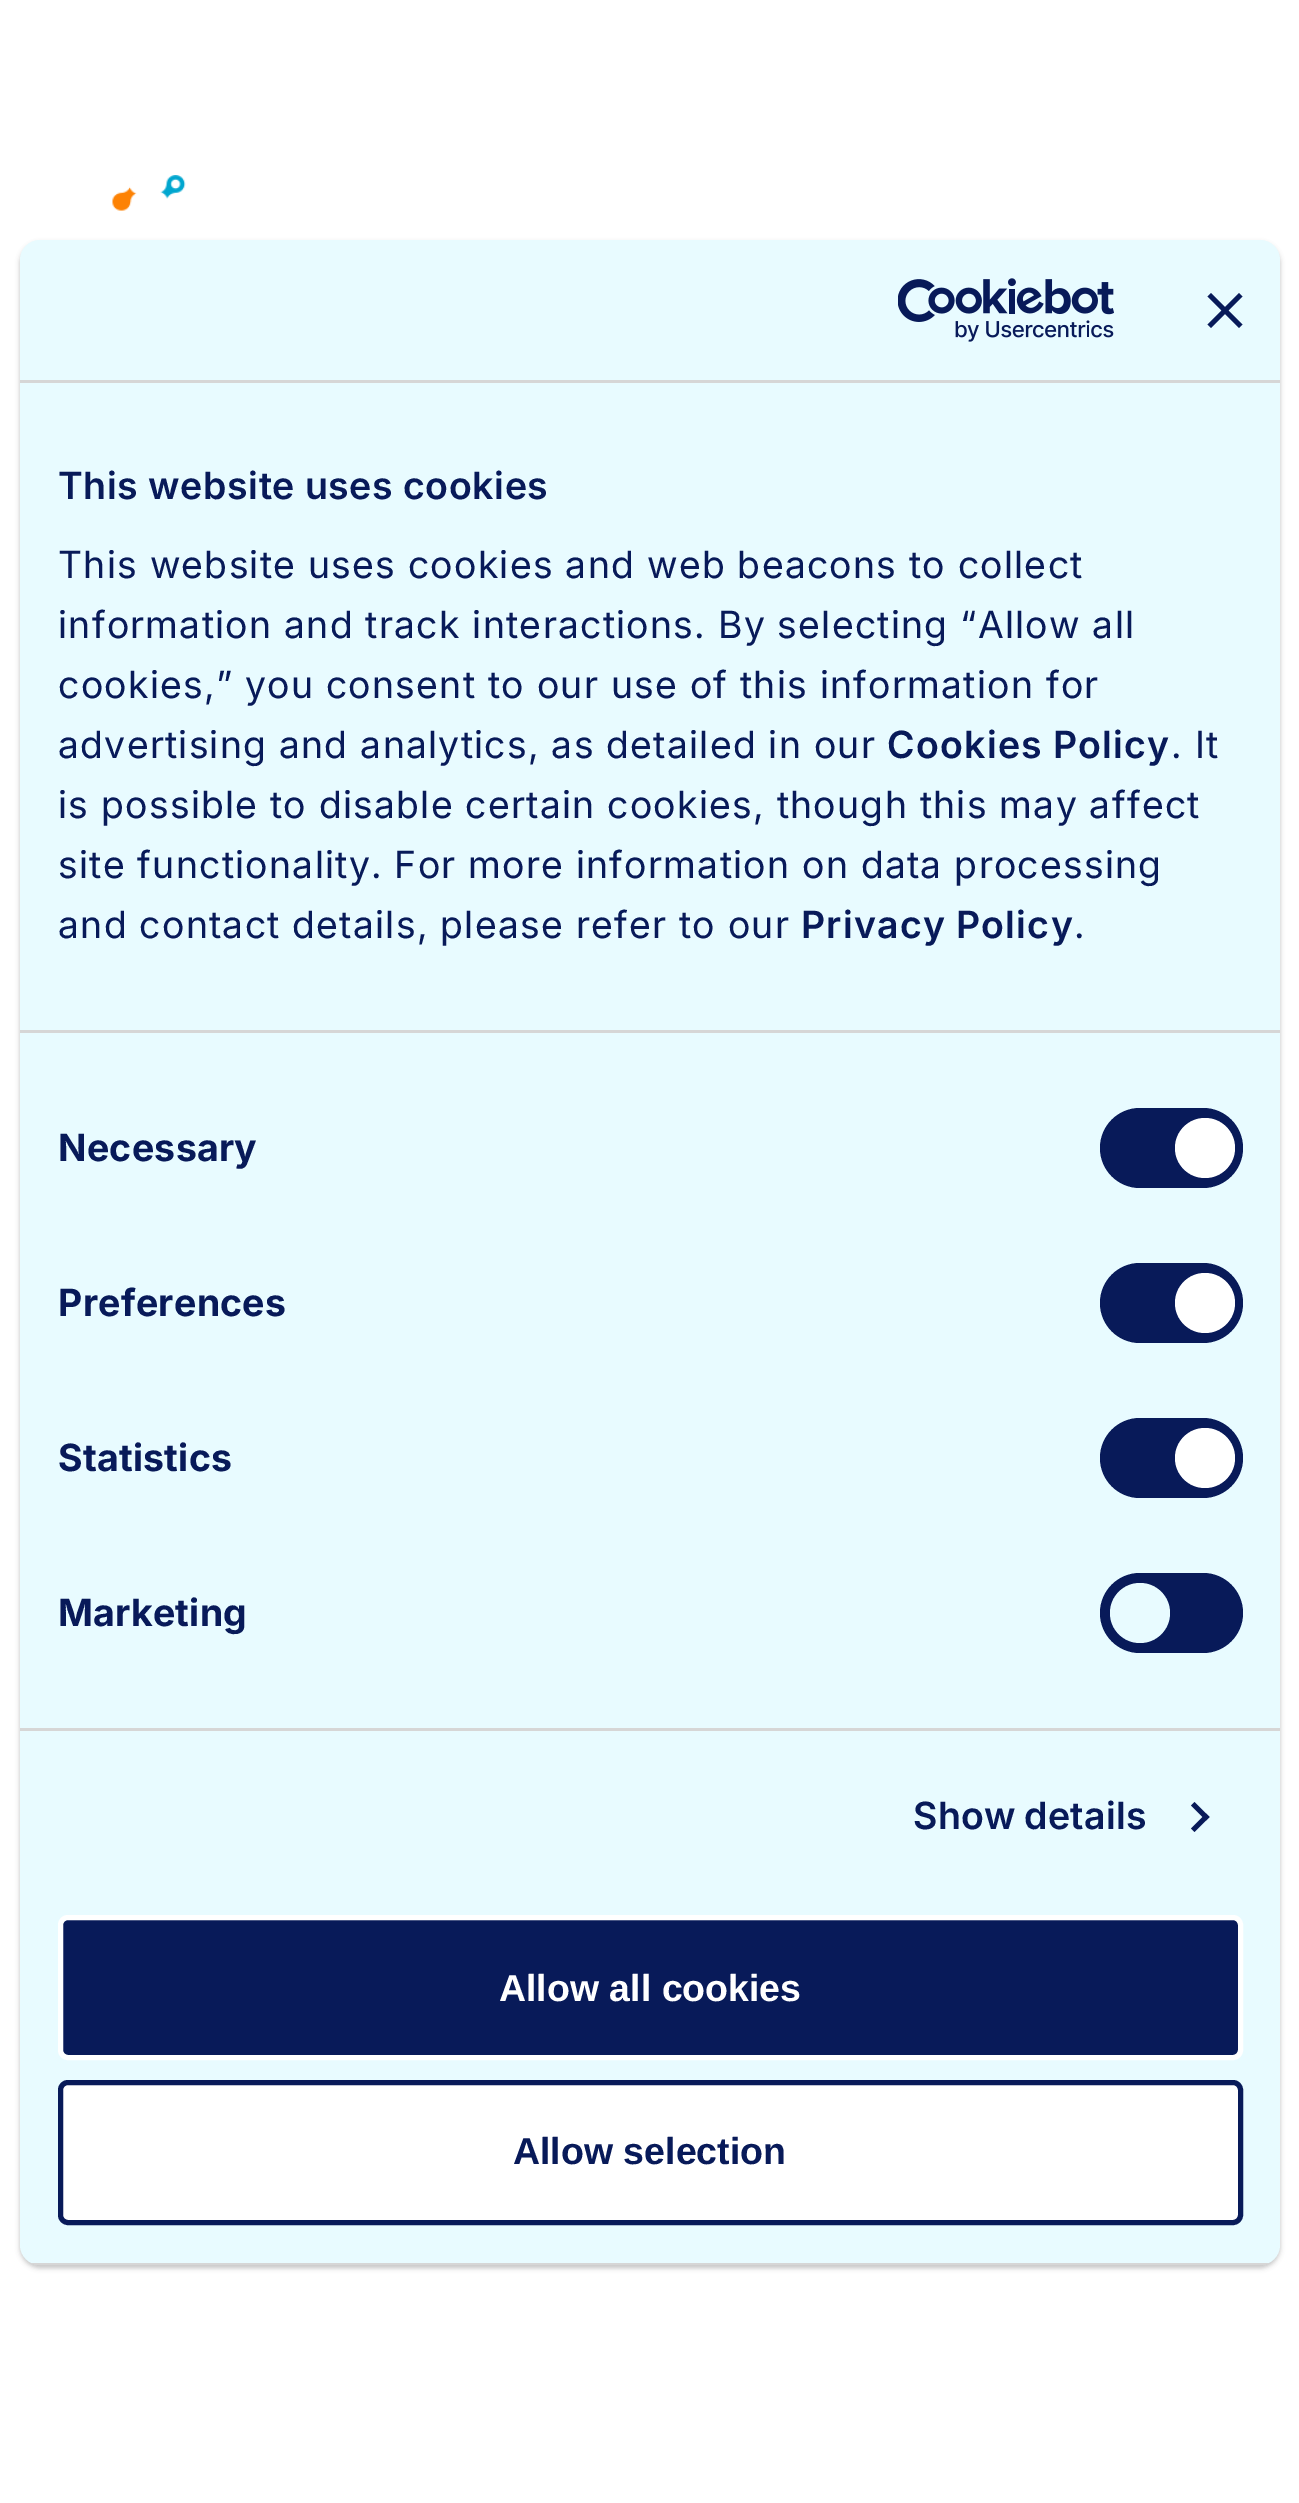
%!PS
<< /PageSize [1299 2503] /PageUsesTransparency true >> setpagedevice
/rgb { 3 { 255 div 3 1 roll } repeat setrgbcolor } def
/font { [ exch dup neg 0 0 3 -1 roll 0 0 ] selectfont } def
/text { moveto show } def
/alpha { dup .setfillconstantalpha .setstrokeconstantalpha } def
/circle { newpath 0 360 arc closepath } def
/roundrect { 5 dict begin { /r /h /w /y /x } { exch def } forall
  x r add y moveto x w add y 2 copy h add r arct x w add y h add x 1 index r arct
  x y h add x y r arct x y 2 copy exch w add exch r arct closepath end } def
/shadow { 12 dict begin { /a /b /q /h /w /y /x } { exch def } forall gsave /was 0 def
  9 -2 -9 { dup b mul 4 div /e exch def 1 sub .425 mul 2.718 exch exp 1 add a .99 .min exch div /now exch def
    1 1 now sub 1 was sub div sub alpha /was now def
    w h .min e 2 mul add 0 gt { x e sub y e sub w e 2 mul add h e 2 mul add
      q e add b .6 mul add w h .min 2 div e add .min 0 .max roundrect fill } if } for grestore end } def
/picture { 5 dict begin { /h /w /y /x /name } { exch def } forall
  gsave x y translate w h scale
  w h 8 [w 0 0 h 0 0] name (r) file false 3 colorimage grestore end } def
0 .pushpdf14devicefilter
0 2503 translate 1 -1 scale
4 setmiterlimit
255 255 255 rgb
0 0 1299 2503 rectfill
(img_01.rgb) 112 175 74 36 picture
0 0 0 rgb
20 243 1260 2025 20 2.5 0.23 shadow
232 251 255 rgb
20 240 1260 2025 20 roundrect fill
214 214 214 rgb
20 380 1260 3 rectfill
(img_02.rgb) 898 278 216 64 picture
8 26 89 rgb
1242.5 296.5 moveto -3.5 -3.5 rlineto -14 14 rlineto -14 -14 rlineto -3.5 3.5 rlineto 14 14 rlineto -14 14 rlineto 3.5 3.5 rlineto 14 -14 rlineto 14 14 rlineto 3.5 -3.5 rlineto -14 -14 rlineto closepath fill
214 214 214 rgb
20 1030 1260 3 rectfill
20 1728 1260 3 rectfill
8 26 89 rgb
1100 1108 143 80 40 roundrect fill
255 255 255 rgb
1205 1148 30 circle fill
8 26 89 rgb
1100 1263 143 80 40 roundrect fill
255 255 255 rgb
1205 1303 30 circle fill
8 26 89 rgb
1100 1418 143 80 40 roundrect fill
255 255 255 rgb
1205 1458 30 circle fill
8 26 89 rgb
1100 1573 143 80 40 roundrect fill
232 251 255 rgb
1140 1613 30 circle fill
8 26 89 rgb
1194.5 1802 moveto 15 15 rlineto -3.5 3.5 rlineto -15 -15 rlineto closepath fill
1206 1813.5 moveto 3.5 3.5 rlineto -15 15 rlineto -3.5 -3.5 rlineto closepath fill
gsave
20 240 1260 2025 20 roundrect clip newpath
214 214 214 rgb
31 2263 1238 2 rectfill
grestore
60.5 1917.5 1180 140 7.5 roundrect gsave fill grestore
255 255 255 rgb
5 setlinewidth
stroke
60.5 2082.5 1180 140 7.5 roundrect gsave fill grestore
8 26 89 rgb
stroke
/Inter-SemiBold 37.5 font
58 499 moveto -0.5 0 32 0.6 0 (This website uses cookies) awidthshow
/Inter-Regular 37.5 font
58 578 moveto 1.25 0 (This website uses cookies and web beacons to collect) ashow
58 638 moveto 1.25 0 (information and track interactions. By selecting “Allow all) ashow
58 698 moveto 1.25 0 (cookies,” you consent to our use of this information for) ashow
58 758 moveto 1.25 0 (advertising and analytics, as detailed in our) ashow
/Inter-SemiBold 37.5 font
887 758 moveto -1 0 32 1.25 0 (Cookies Policy) awidthshow
/Inter-Regular 37.5 font
1171 758 moveto 1.25 0 (. It) ashow
58 818 moveto 1.25 0 (is possible to disable certain cookies, though this may affect) ashow
58 878 moveto 1.25 0 (site functionality. For more information on data processing) ashow
58 938 moveto 1.25 0 (and contact details, please refer to our) ashow
/Inter-SemiBold 37.5 font
801 938 moveto -1 0 32 1.25 0 (Privacy Policy) awidthshow
/Inter-Regular 37.5 font
1074 938 moveto 1.25 0 (.) ashow
/Inter-Bold 37.5 font
58 1161 moveto 0.25 0 (Necessary) ashow
58 1316 moveto 0.25 0 (Preferences) ashow
58 1471 moveto 0.25 0 (Statistics) ashow
58 1626 moveto 0.25 0 (Marketing) ashow
/Inter-SemiBold 37.5 font
913 1829 moveto -1 0 32 0.25 0 (Show details) awidthshow
/LiberationSans-Bold 37.5 font
255 255 255 rgb
(Allow all cookies) 499 2001 text
8 26 89 rgb
(Allow selection) 513 2164 text
.poppdf14devicefilter showpage
